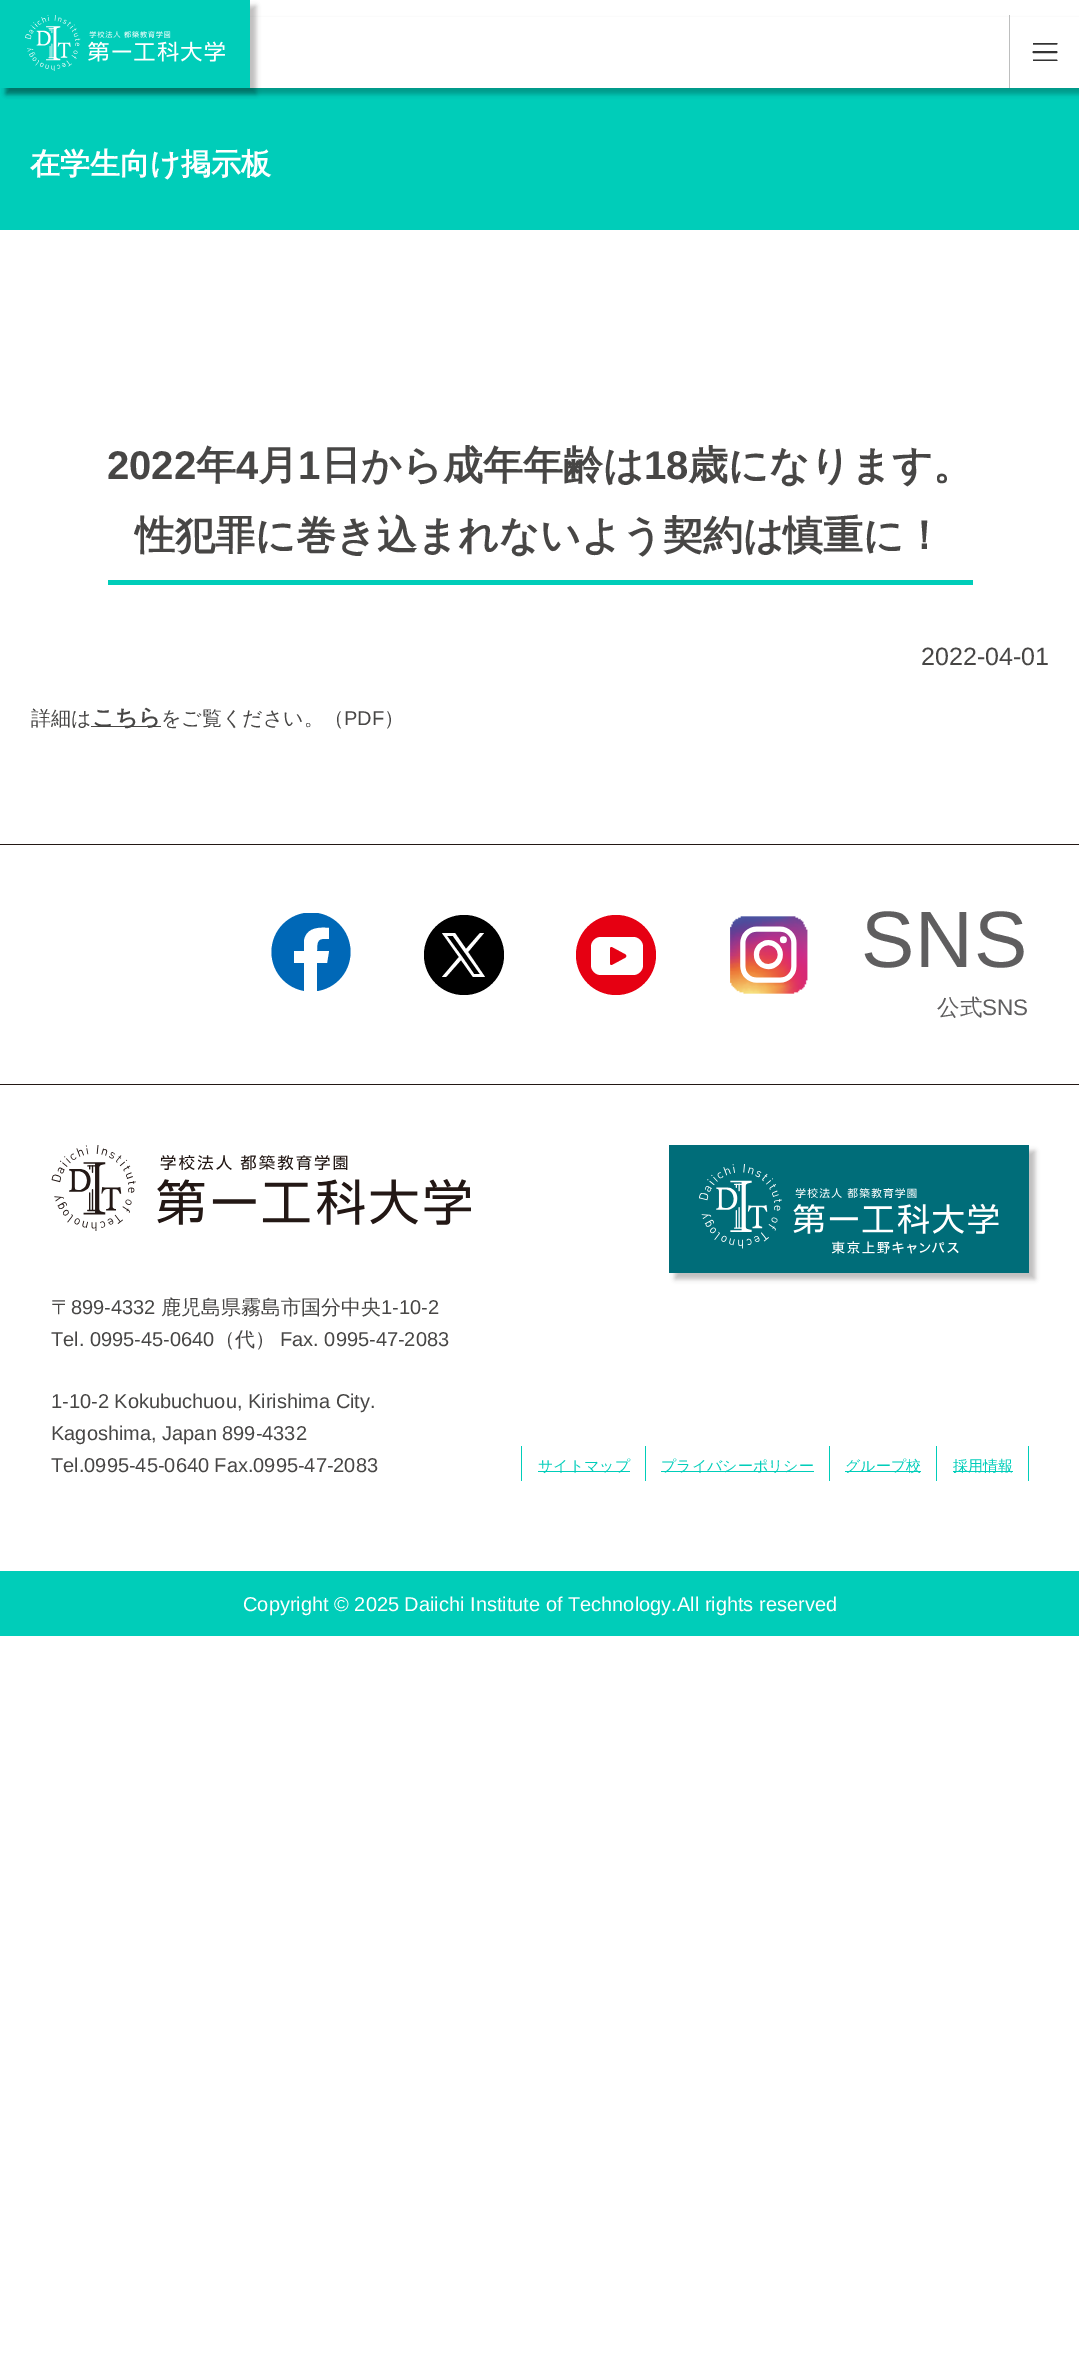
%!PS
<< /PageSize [1079 2357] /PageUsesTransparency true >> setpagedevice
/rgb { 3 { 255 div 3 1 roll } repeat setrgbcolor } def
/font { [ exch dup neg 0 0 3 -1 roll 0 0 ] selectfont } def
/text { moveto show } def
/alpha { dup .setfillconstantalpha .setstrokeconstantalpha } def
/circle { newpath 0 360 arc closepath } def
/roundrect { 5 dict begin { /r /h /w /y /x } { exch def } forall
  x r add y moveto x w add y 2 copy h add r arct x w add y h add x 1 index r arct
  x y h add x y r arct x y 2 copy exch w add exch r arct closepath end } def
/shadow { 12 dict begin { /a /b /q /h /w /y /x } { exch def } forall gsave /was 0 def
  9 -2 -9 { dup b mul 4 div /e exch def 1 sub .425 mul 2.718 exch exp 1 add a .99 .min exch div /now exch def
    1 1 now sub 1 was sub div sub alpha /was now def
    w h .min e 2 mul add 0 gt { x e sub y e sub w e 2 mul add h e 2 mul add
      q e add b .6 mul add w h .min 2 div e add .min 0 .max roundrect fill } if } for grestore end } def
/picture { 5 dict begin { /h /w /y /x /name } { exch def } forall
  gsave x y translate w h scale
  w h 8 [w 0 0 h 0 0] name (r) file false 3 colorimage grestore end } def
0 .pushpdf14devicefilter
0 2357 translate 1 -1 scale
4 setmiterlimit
255 255 255 rgb
0 0 1079 2357 rectfill
0 205 185 rgb
0 88 1079 142 rectfill
4 0 0 rgb
6 21 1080 73 0 2.5 0.25 shadow
255 255 255 rgb
250 17 829 71 rectfill
4 0 0 rgb
6 6 250 88 0 2.5 0.25 shadow
0 205 185 rgb
0 0 250 88 rectfill
(img_01.rgb) 25 15 200 56 picture
gsave
1033 43 25 18 rectclip
51 51 51 rgb
1.9 setlinewidth
1 setlinecap
1 setlinejoin
1033.5 43.5 moveto 23 0 rlineto stroke
grestore
51 51 51 rgb
1.9 setlinewidth
1 setlinecap
1 setlinejoin
1033.5 52 moveto 23 0 rlineto stroke
gsave
1033 43 25 18 rectclip
1033.5 60.5 moveto 23 0 rlineto stroke
grestore
189 190 190 rgb
1009 15 1 73 rectfill
0 205 185 rgb
108 580 865 5 rectfill
71 70 69 rgb
91 726 70 1 rectfill
35 24 21 rgb
0 844 1079 1 rectfill
0 1084 1079 1 rectfill
gsave
271 913 80 85 rectclip
0 104 183 rgb
311 952 39.5 circle fill
grestore
255 255 255 rgb
327 963 moveto 2 -12 rlineto -12 0 rlineto 0 -11 1 -13 12 -12 rcurveto 0 -11 rlineto -11 -1 -23 0 -25 13 rcurveto 0 10 rlineto -10 0 rlineto 0 12 rlineto 10 0 rlineto 0 34 rlineto 13 0 rlineto 0 -34 rlineto closepath fill
0 0 0 rgb
464 955 40 circle fill
255 255 255 rgb
468 952 moveto 16 -19 rlineto -4 0 rlineto -14 16 rlineto -11 -16 rlineto -13 0 rlineto 17 24 rlineto -17 20 rlineto 4 0 rlineto 15 -17 rlineto 12 17 rlineto 12 0 rlineto closepath 463 958 moveto -16 -22 rlineto 6 0 rlineto 27 38 rlineto -6 0 rlineto closepath fill
230 0 18 rgb
616 955 40 circle fill
255 255 255 rgb
591 937 52 38 10 roundrect fill
230 0 18 rgb
610 949 moveto 0 -1.5 1 -2.5 2.5 -1.5 rcurveto 13 7 rlineto 1 1 1 2 0 3 rcurveto -13 7 rlineto -1.5 1 -2.5 0 -2.5 -1.5 rcurveto closepath fill
(img_02.rgb) 730 916 78 78 picture
(img_03.rgb) 51 1145 420 86 picture
4 0 0 rgb
675 1151 360 128 0 2.5 0.25 shadow
0 109 121 rgb
669 1145 360 128 rectfill
(img_04.rgb) 699 1164 300 90 picture
0 205 185 rgb
645 1446 1 35 rectfill
521 1446 1 35 rectfill
538 1471 92 1 rectfill
829 1446 1 35 rectfill
661 1471 153 1 rectfill
936 1446 1 35 rectfill
845 1471 76 1 rectfill
1028 1446 1 35 rectfill
953 1471 60 1 rectfill
0 1571 1079 65 rectfill
/WenQuanYiZenHei-Bold 30 font
255 255 255 rgb
(在学生向け掲示板) 30 174 text
/LiberationSans-Bold 40 font
71 70 69 rgb
(2022) 107 479 text
/WenQuanYiZenHei-Bold 40 font
(年) 196 479 text
/LiberationSans-Bold 40 font
(4) 236 479 text
/WenQuanYiZenHei-Bold 40 font
(月) 258 479 text
/LiberationSans-Bold 40 font
(1) 298 479 text
/WenQuanYiZenHei-Bold 40 font
(日から成年年齢は) 321 479 text
/LiberationSans-Bold 40 font
(18) 644 479 text
/WenQuanYiZenHei-Bold 40 font
(歳になります。) 688 479 text
(性犯罪に巻き込まれないよう契約は慎重に！) 135 549 text
/LiberationSans-Regular 25 font
(2022-04-01) 921 665 text
/WenQuanYiZenHei-Medium 20 font
(詳細は) 31 725 text
/WenQuanYiZenHei-Bold 22.5 font
(こちら) 92 725 text
/WenQuanYiZenHei-Medium 20 font
(をご覧ください。（) 161 725 text
/LiberationSans-Regular 20 font
(PDF) 344 725 text
/WenQuanYiZenHei-Medium 20 font
(）) 384 725 text
/LiberationSans-Regular 80 font
95 94 95 rgb
861 967 moveto 1 0 (SNS) ashow
/WenQuanYiZenHei-Medium 22.5 font
(公式) 937 1015 text
/LiberationSans-Regular 22.5 font
(SNS) 982 1015 text
/WenQuanYiZenHei-Medium 20 font
71 70 69 rgb
(〒) 51 1314 text
/LiberationSans-Regular 20 font
(899-4332) 71 1314 text
/WenQuanYiZenHei-Medium 20 font
(鹿児島県霧島市国分中央) 161 1314 text
/LiberationSans-Regular 20 font
(1-10-2) 381 1314 text
(Tel. 0995-45-0640) 51 1346 text
/WenQuanYiZenHei-Medium 20 font
(（代）) 215 1346 text
/LiberationSans-Regular 20 font
(Fax. 0995-47-2083) 280 1346 text
(1-10-2 Kokubuchuou, Kirishima City.) 51 1408 text
(Kagoshima, Japan 899-4332) 51 1440 text
(Tel.0995-45-0640 Fax.0995-47-2083) 51 1472 text
/WenQuanYiZenHei-Medium 15 font
0 205 185 rgb
(サイトマップ) 538 1471 text
(プライバシーポリシー) 661 1471 text
(グループ校) 845 1471 text
(採用情報) 953 1471 text
/LiberationSans-Regular 20 font
255 255 255 rgb
(Copyright © 2025 Daiichi Institute of Technology.All rights reserved) 243 1611 text
.poppdf14devicefilter showpage
